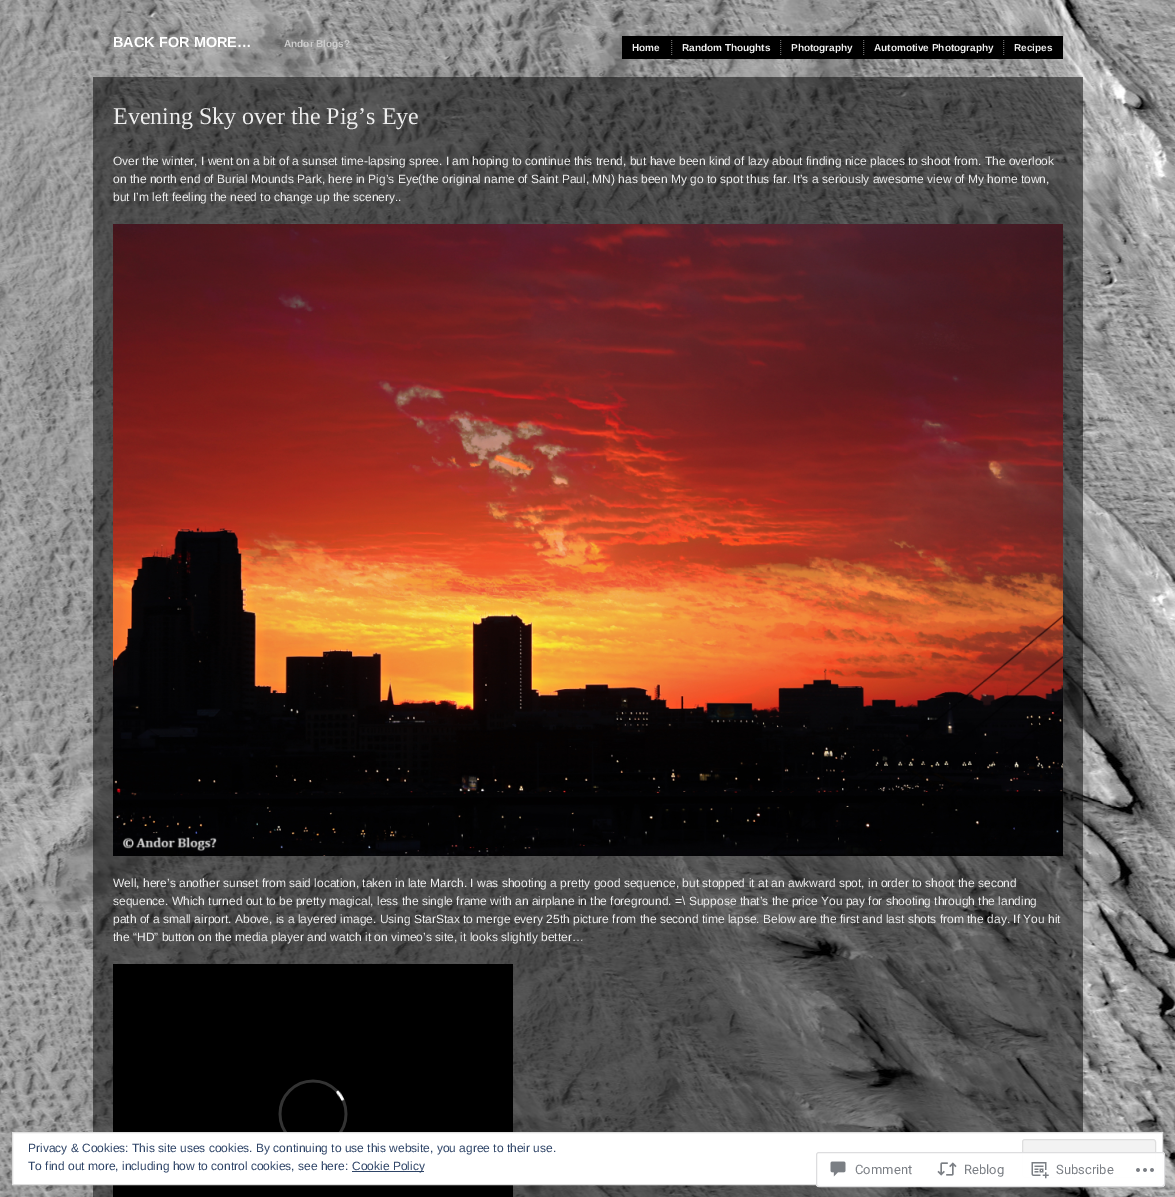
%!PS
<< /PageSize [1175 1197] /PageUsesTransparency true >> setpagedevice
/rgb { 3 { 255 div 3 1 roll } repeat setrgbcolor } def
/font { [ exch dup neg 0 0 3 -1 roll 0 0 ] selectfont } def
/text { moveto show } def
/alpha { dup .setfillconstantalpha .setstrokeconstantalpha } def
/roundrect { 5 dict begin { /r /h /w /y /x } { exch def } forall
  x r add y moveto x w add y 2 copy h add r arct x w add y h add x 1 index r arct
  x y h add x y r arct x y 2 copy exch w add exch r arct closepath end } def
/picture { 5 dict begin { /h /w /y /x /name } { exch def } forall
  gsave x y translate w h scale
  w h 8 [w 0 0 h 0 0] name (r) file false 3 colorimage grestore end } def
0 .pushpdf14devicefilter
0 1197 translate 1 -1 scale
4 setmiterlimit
255 255 255 rgb
0 0 1175 1197 rectfill
(img_01.rgb) 0 0 1175 1197 picture
0 0 0 rgb
622 36 441 23 rectfill
102 102 102 rgb
[1 1] 0 setdash
671.5 40 moveto 0 15 rlineto stroke
780.5 40 moveto 0 15 rlineto stroke
863.5 40 moveto 0 15 rlineto stroke
1003.5 40 moveto 0 15 rlineto stroke
0.5 alpha
0 0 0 rgb
93 77 990 1120 rectfill
1 alpha
(img_02.rgb) 113 224 950 632 picture
(img_03.rgb) 113 964 400 233 picture
255 255 255 rgb
12.5 1132.5 moveto 1150 0 rlineto 0 52 rlineto -1150 0 rlineto closepath gsave fill grestore
222 222 222 rgb
[] 0 setdash
stroke
243 243 243 rgb
1022.5 1139.5 133 38 2.5 roundrect gsave fill grestore
222 222 222 rgb
stroke
0.98 alpha
255 255 255 rgb
816 1152 349 35 3 roundrect fill
220 220 222 rgb
816.5 1152.5 348 34 2.5 roundrect stroke
1 alpha
(img_04.rgb) 830 1161 16 16 picture
(img_05.rgb) 937 1162 20 14 picture
(img_06.rgb) 1031 1162 18 17 picture
(img_07.rgb) 1136 1168 18 4 picture
46 68 103 rgb
352 1171 72 1 rectfill
/LiberationSans-Bold 14.5 font
255 255 255 rgb
(BACK FOR MORE…) 113 47 text
/LiberationSans-Bold 10 font
204 204 204 rgb
(Andor Blogs?) 284 47 text
238 238 238 rgb
(Home) 632 51 text
(Random Thoughts) 682 51 text
(Photography) 791 51 text
(Automotive Photography) 874 51 text
(Recipes) 1014 51 text
/LiberationSerif-Regular 24 font
(Evening Sky over the Pig’s Eye) 113 124 text
/LiberationSans-Regular 12 font
(Over the winter, I went on a bit of a sunset time-lapsing spree. I am hoping to continue this trend, but have been kind of lazy about finding nice places to shoot from. The overlook) 113 165 text
(on the north end of Burial Mounds Park, here in Pig’s Eye\(the original name of Saint Paul, MN\) has been My go to spot thus far. It’s a seriously awesome view of My home town,) 113 183 text
(but I’m left feeling the need to change up the scenery..) 113 201 text
(Well, here’s another sunset from said location, taken in late March. I was shooting a pretty good sequence, but stopped it at an awkward spot, in order to shoot the second) 113 887 text
(sequence. Which turned out to be pretty magical, less the single frame with an airplane in the foreground. =\\ Suppose that’s the price You pay for shooting through the landing) 113 905 text
(path of a small airport. Above, is a layered image. Using StarStax to merge every 25th picture from the second time lapse. Below are the first and last shots from the day. If You hit) 113 923 text
(the “HD” button on the media player and watch it on vimeo’s site, it looks slightly better…) 113 941 text
/Roboto-Regular 13 font
123 127 133 rgb
(Comment) 855 1174 text
(Reblog) 964 1174 text
(Subscribe) 1056 1174 text
/LiberationSans-Regular 12 font
46 68 103 rgb
(Privacy & Cookies: This site uses cookies. By continuing to use this website, you agree to their use.) 28 1152 text
(To find out more, including how to control cookies, see here:) 28 1170 text
(Cookie Policy) 352 1170 text
.poppdf14devicefilter showpage
